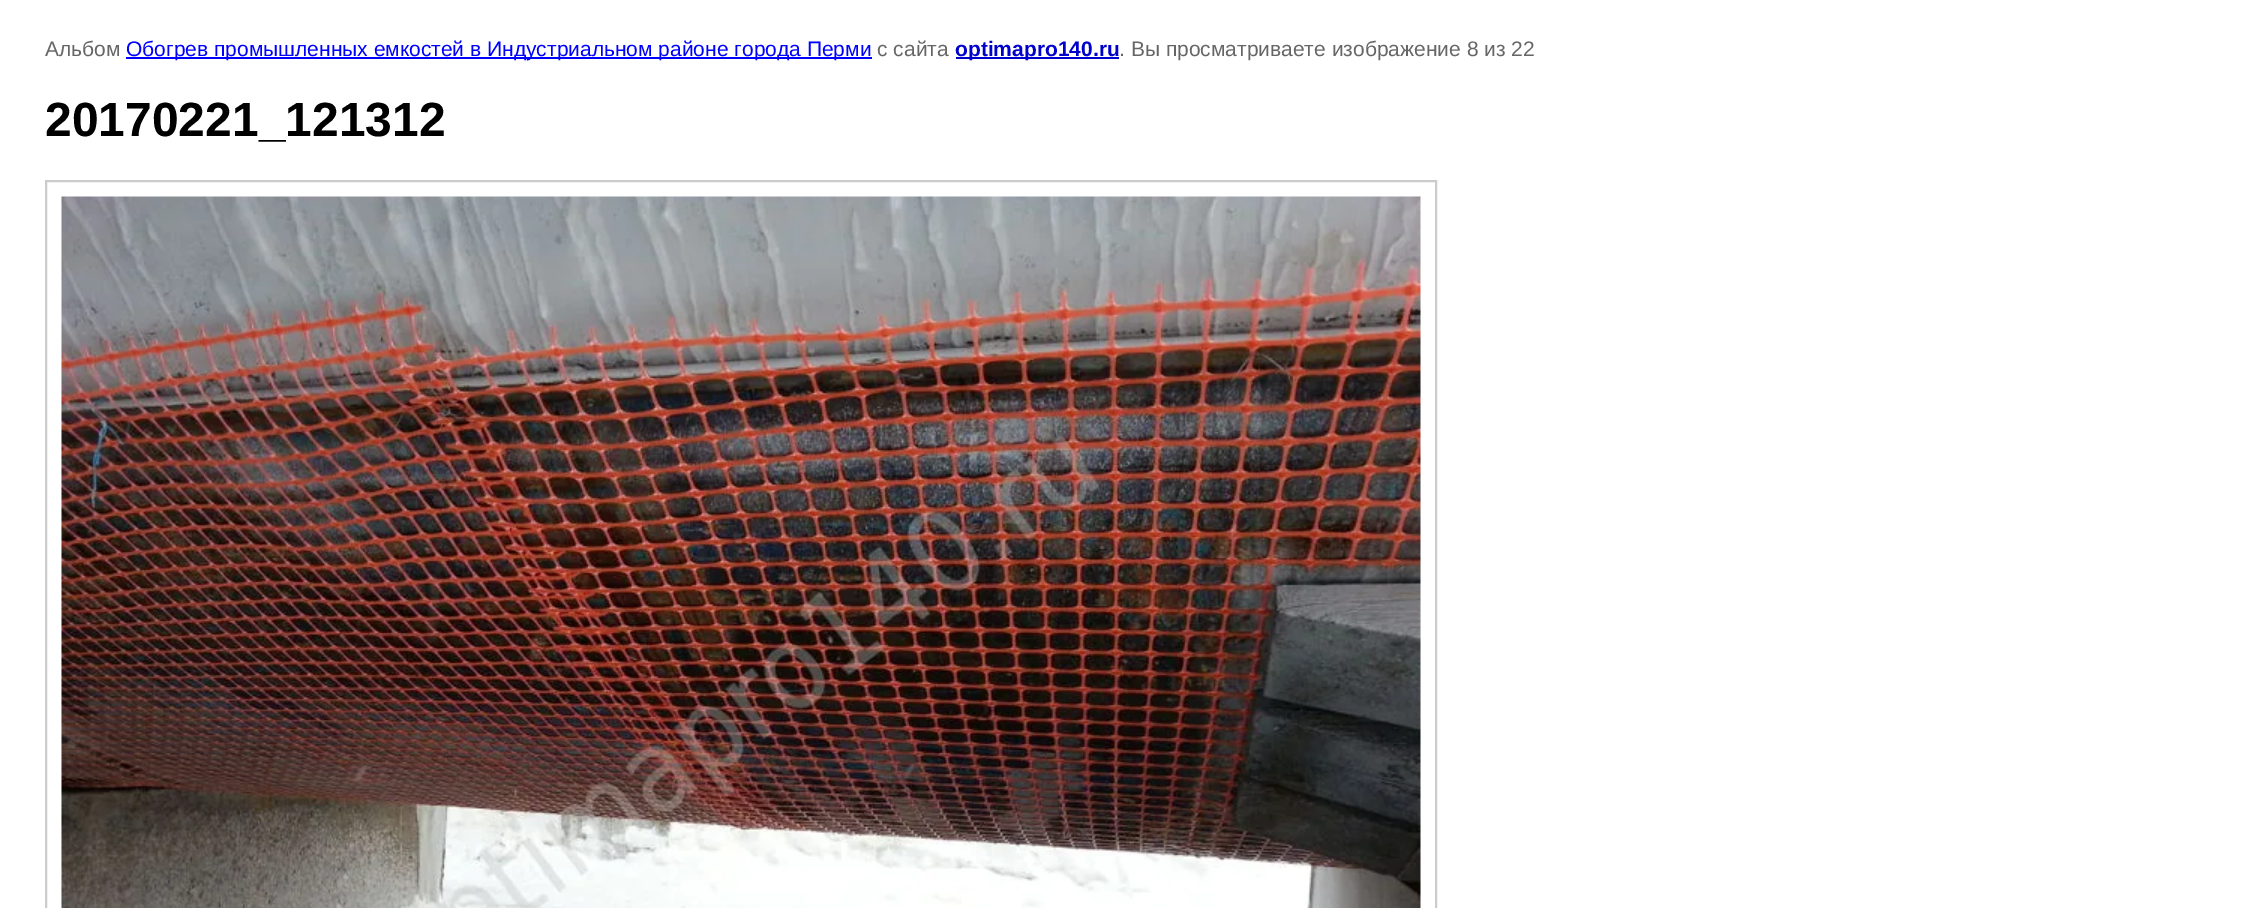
%!PS
<< /PageSize [2259 908] >> setpagedevice
/rgb { 3 { 255 div 3 1 roll } repeat setrgbcolor } def
/font { [ exch dup neg 0 0 3 -1 roll 0 0 ] selectfont } def
/text { moveto show } def
/picture { 5 dict begin { /h /w /y /x /name } { exch def } forall
  gsave x y translate w h scale
  w h 8 [w 0 0 h 0 0] name (r) file false 3 colorimage grestore end } def
0 908 translate 1 -1 scale
4 setmiterlimit
255 255 255 rgb
0 0 2259 908 rectfill
0 0 255 rgb
126 57 746 2 rectfill
0 0 204 rgb
956 57 163 2 rectfill
204 204 204 rgb
2 setlinewidth
46 181 1390 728 rectstroke
(img_01.rgb) 61 196 1360 712 picture
/LiberationSans-Regular 21 font
102 102 102 rgb
(Альбом) 45 56 text
0 0 255 rgb
(Обогрев промышленных емкостей в Индустриальном районе города Перми) 126 56 text
102 102 102 rgb
(с сайта) 877 56 text
/LiberationSans-Bold 21 font
0 0 204 rgb
(optimapro140.ru) 955 56 text
/LiberationSans-Regular 21 font
102 102 102 rgb
(. Вы просматриваете изображение 8 из 22) 1119 56 text
/LiberationSans-Bold 48 font
0 0 0 rgb
(20170221_121312) 45 136 text
showpage
